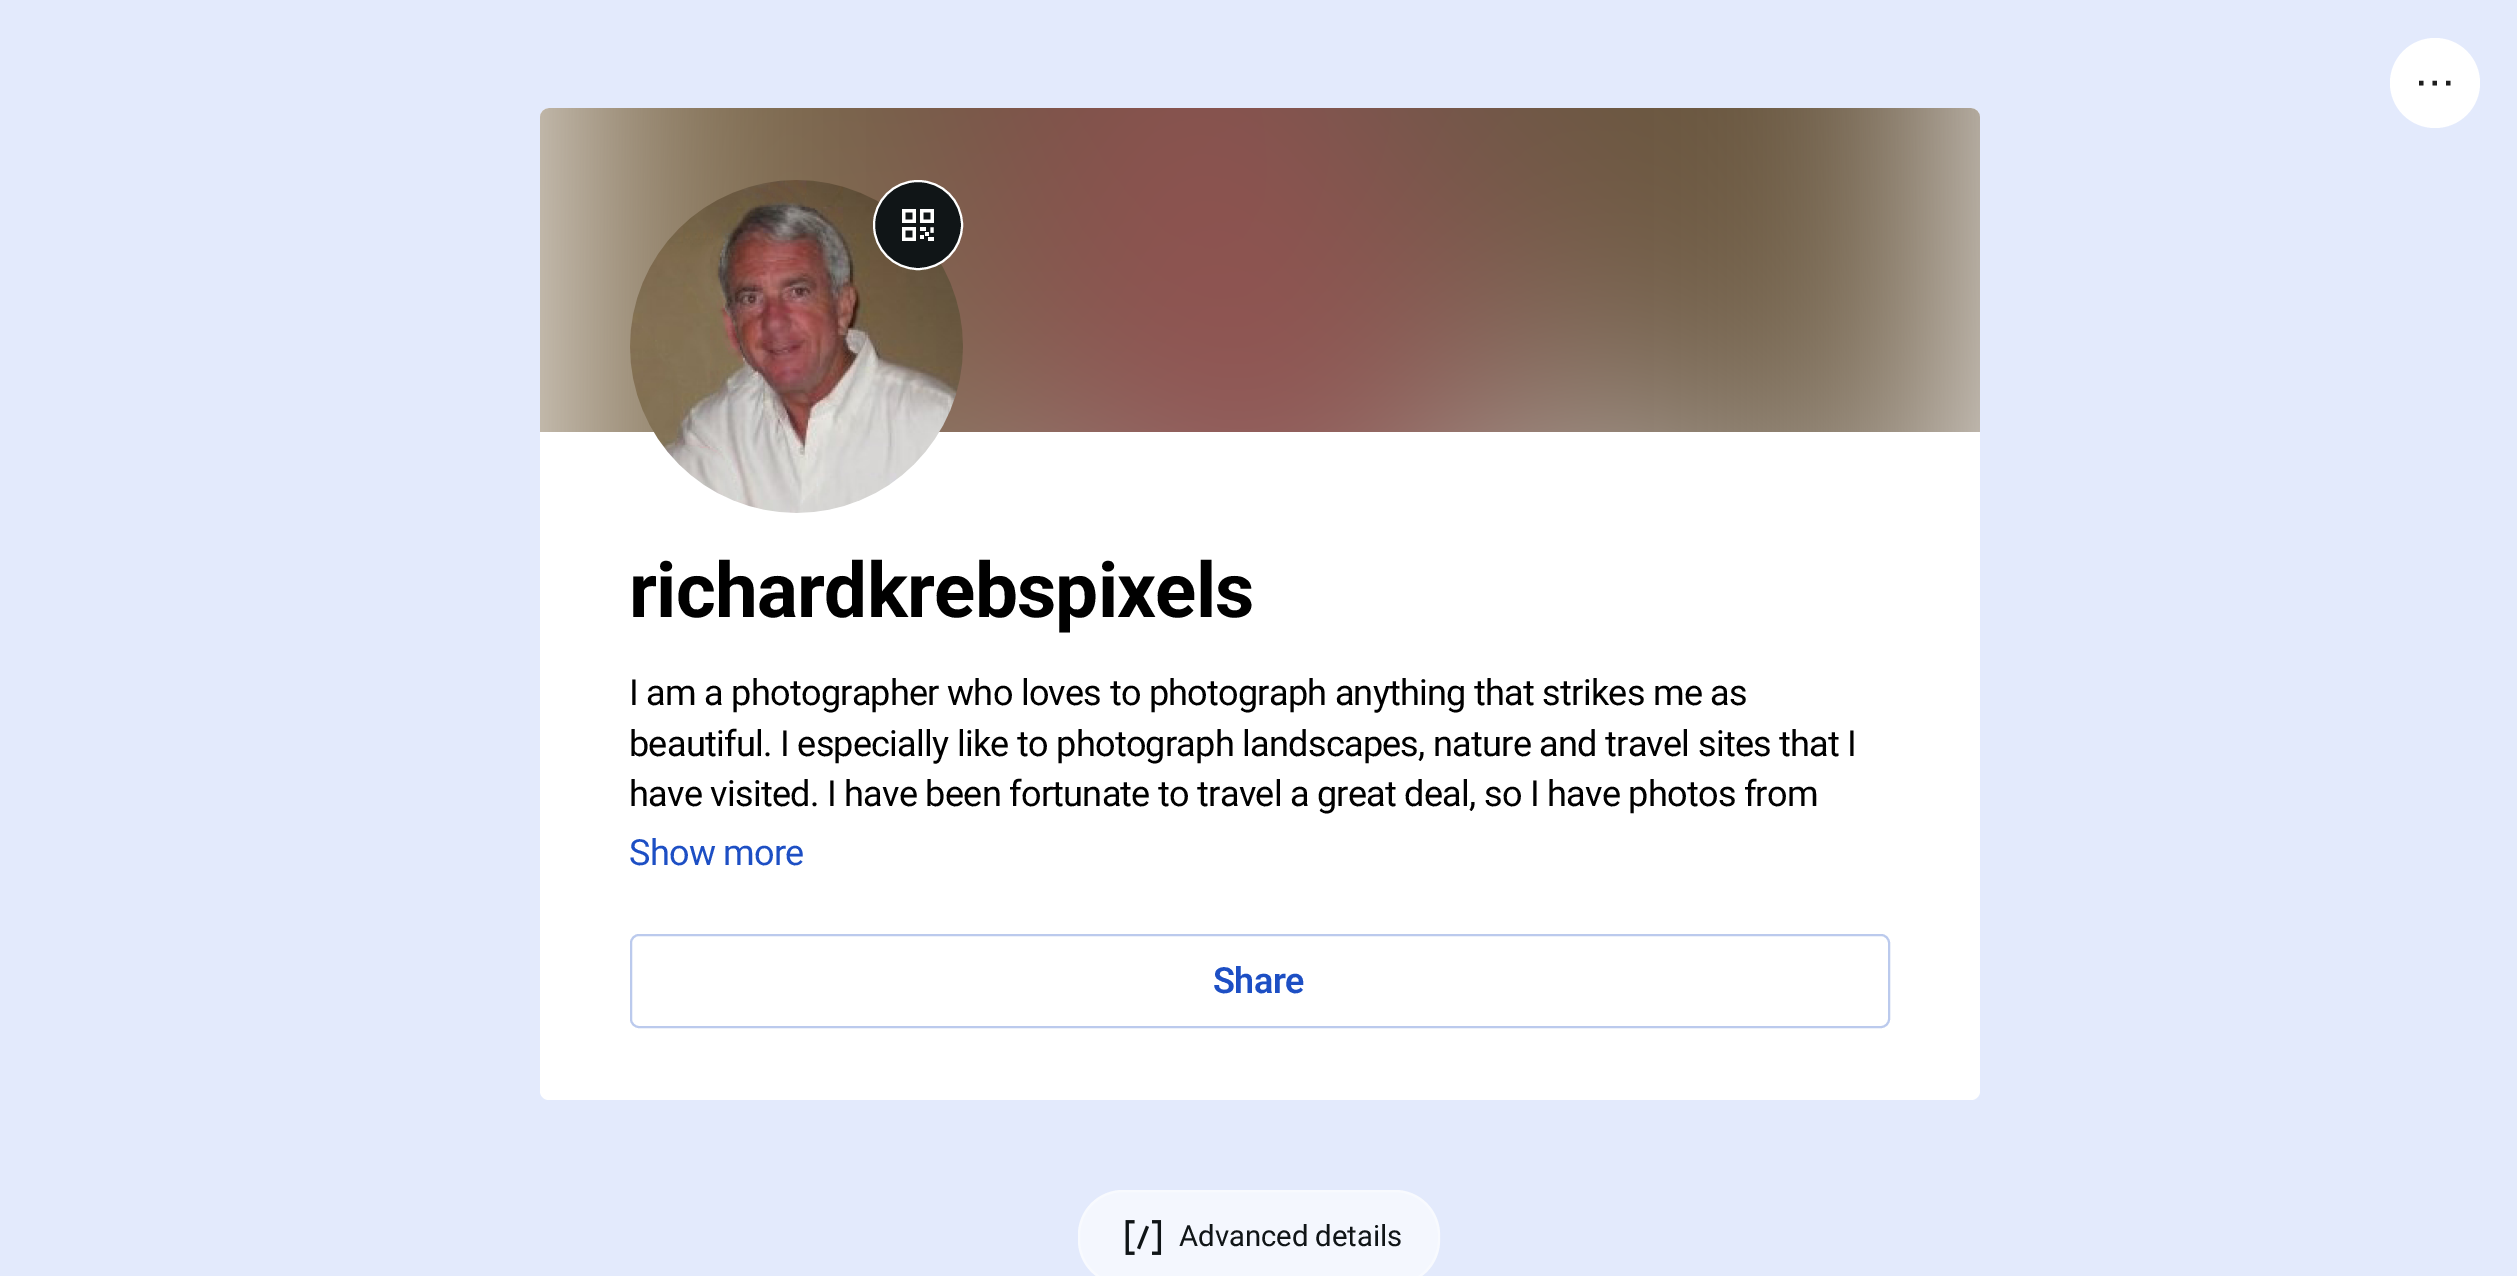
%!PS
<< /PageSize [2517 1276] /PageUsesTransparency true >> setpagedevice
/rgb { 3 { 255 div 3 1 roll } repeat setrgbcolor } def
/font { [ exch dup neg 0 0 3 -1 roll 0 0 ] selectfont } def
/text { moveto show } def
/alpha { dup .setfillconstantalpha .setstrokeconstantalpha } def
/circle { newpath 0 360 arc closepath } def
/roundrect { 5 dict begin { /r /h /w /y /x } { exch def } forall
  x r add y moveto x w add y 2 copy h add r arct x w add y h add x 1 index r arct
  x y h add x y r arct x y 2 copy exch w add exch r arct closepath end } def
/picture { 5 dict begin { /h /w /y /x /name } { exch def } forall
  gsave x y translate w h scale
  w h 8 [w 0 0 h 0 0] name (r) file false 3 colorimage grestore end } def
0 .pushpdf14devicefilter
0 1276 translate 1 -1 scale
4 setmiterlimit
227 234 252 rgb
0 0 2517 1276 rectfill
255 255 255 rgb
2435 83 45 circle fill
30 30 30 rgb
4.5 setlinewidth
2437 83 moveto -4.5 0 rlineto 2450.5 83 moveto -4.5 0 rlineto 2423.5 83 moveto -4.5 0 rlineto stroke
255 255 255 rgb
540 108 1440 992 9 roundrect fill
(img_01.rgb) 540 108 1440 324 picture
(img_02.rgb) 630 180 333 333 picture
16 21 23 rgb
918 225 44 circle gsave fill grestore
255 255 255 rgb
2 setlinewidth
stroke
(img_03.rgb) 902 209 32 32 picture
187 202 237 rgb
631 935 1258 92 8 roundrect stroke
244 247 254 rgb
1078 1190 362 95 45 roundrect fill
0.4 alpha
255 255 255 rgb
1079 1191 360 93 44 roundrect stroke
1 alpha
(img_04.rgb) 1125 1220 37 35 picture
/Roboto-Bold 76.5 font
0 0 0 rgb
629 617 moveto -0.75 0 (richardkrebspixels) ashow
/Roboto-Regular 36 font
629 705 moveto -0.72 0 (I am a photographer who loves to photograph anything that strikes me as) ashow
629 756 moveto -0.72 0 (beautiful. I especially like to photograph landscapes, nature and travel sites that I) ashow
629 806 moveto -0.72 0 (have visited. I have been fortunate to travel a great deal, so I have photos from) ashow
29 79 196 rgb
629 865 moveto -0.72 0 (Show more) ashow
/Roboto-SemiBold 36 font
1213 993 moveto -0.5 0 (Share) ashow
/Roboto-Regular 29.25 font
16 21 23 rgb
(Advanced details) 1179 1246 text
.poppdf14devicefilter showpage
